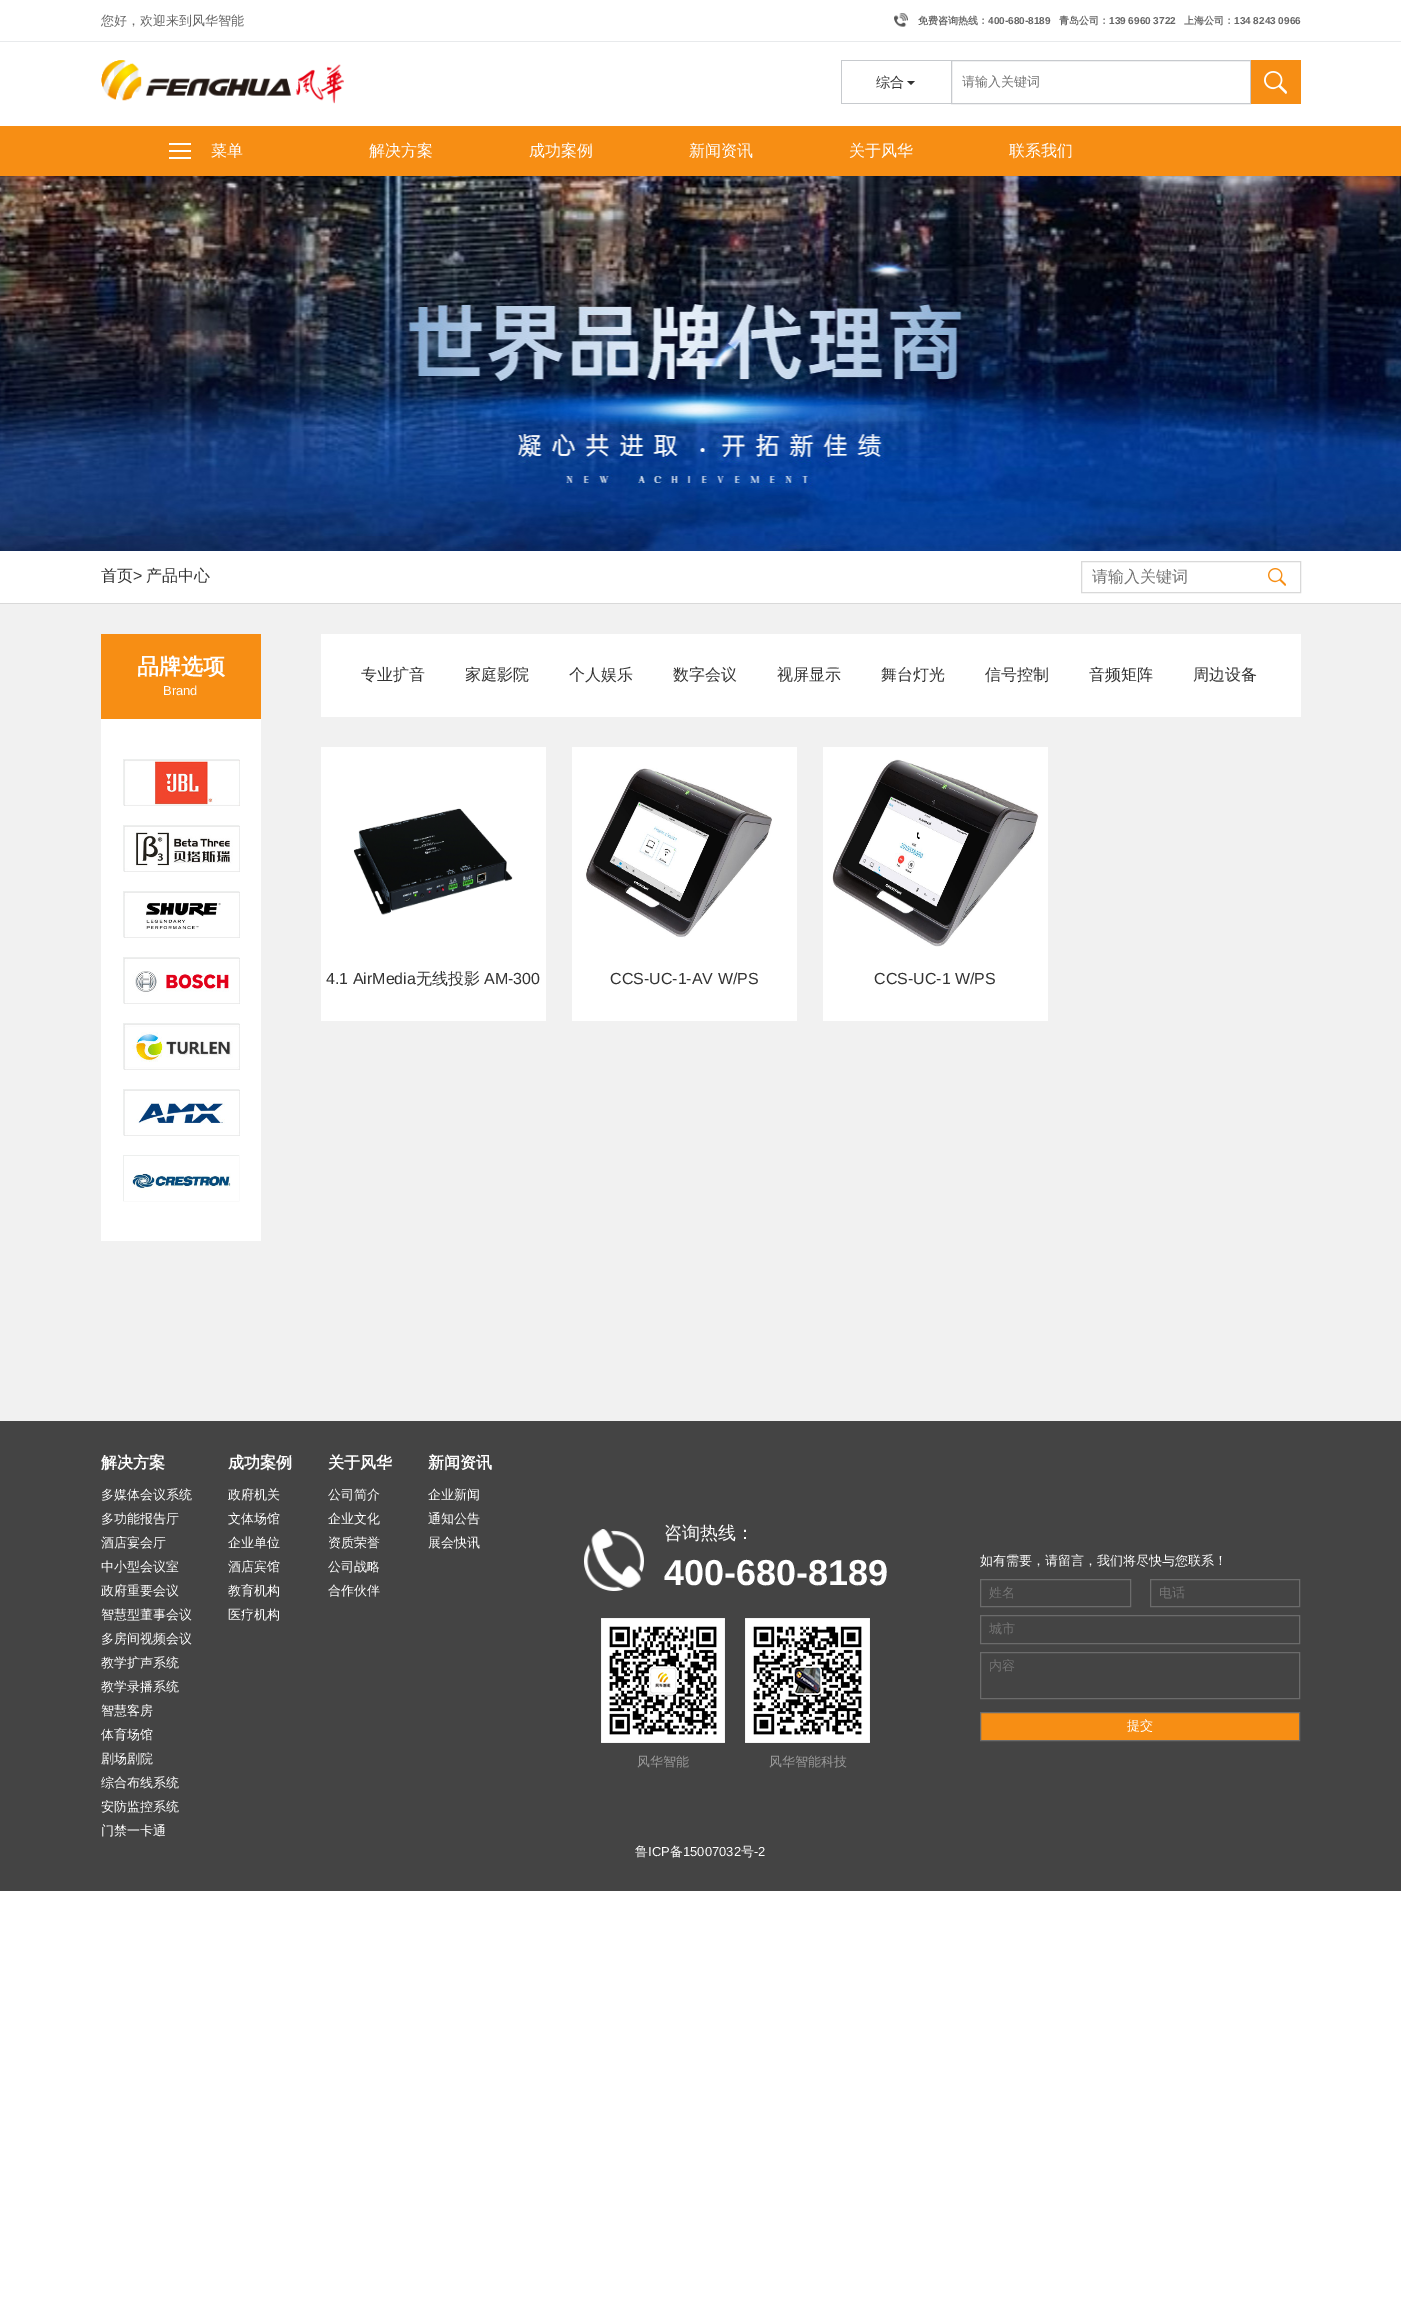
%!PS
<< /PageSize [1401 2297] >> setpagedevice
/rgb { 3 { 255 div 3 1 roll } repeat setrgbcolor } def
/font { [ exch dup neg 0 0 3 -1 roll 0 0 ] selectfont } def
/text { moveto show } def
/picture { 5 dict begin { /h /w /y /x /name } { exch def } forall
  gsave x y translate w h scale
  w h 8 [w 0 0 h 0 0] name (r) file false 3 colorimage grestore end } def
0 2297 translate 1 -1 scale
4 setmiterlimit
255 255 255 rgb
0 0 1401 2297 rectfill
232 234 236 rgb
0 41 1401 1 rectfill
(img_01.rgb) 894 13 14 14 picture
(img_02.rgb) 101 60 243 44 picture
199 202 206 rgb
841 60 110 1 rectfill
841 103 110 1 rectfill
841 60 1 44 rectfill
51 51 51 rgb
907 81 moveto 8 0 rlineto -4 4 rlineto closepath fill
199 202 206 rgb
951.5 60.5 299 43 rectstroke
247 142 20 rgb
1251 60 50 44 rectfill
(img_03.rgb) 1264 71 23 23 picture
0 126 1401 50 rectfill
(img_04.rgb) 169 143 22 16 picture
(img_05.rgb) 0 176 1401 375 picture
217 217 217 rgb
0 603 1401 1 rectfill
1081.5 561.5 219 31 rectstroke
(img_06.rgb) 1268 568 18 18 picture
241 241 241 rgb
0 604 1401 817 rectfill
247 142 20 rgb
101 634 160 85 rectfill
255 255 255 rgb
101 719 160 522 rectfill
237 239 238 rgb
123.5 759.5 115 45 rectstroke
(img_07.rgb) 124 760 116 46 picture
123.5 825.5 115 45 rectstroke
(img_08.rgb) 124 826 116 46 picture
123.5 891.5 115 45 rectstroke
(img_09.rgb) 124 892 116 46 picture
123.5 957.5 115 45 rectstroke
(img_10.rgb) 124 958 116 46 picture
123.5 1023.5 115 45 rectstroke
(img_11.rgb) 124 1024 116 46 picture
123.5 1089.5 115 45 rectstroke
(img_12.rgb) 124 1090 116 46 picture
123.5 1155.5 115 45 rectstroke
(img_13.rgb) 124 1156 115 45 picture
255 255 255 rgb
321 634 980 83 rectfill
321 747 225 274 rectfill
(img_14.rgb) 353 808 160 107 picture
572 747 225 274 rectfill
(img_15.rgb) 585 768 187 170 picture
823 747 225 274 rectfill
(img_16.rgb) 832 759 207 188 picture
68 68 68 rgb
0 1421 1401 470 rectfill
(img_17.rgb) 584 1529 60 62 picture
(img_18.rgb) 601 1618 124 125 picture
(img_19.rgb) 745 1618 125 125 picture
107 107 107 rgb
980.5 1579.5 150 27 rectstroke
1150.5 1579.5 149 27 rectstroke
980.5 1615.5 319 28 rectstroke
980.5 1652.5 319 46 rectstroke
247 142 20 rgb
980.5 1712.5 moveto 319 0 rlineto 0 28 rlineto -319 0 rlineto closepath gsave fill grestore
107 107 107 rgb
stroke
/WenQuanYiZenHei-Medium 13 font
102 102 102 rgb
(您好，欢迎来到风华智能) 101 25 text
/WenQuanYiZenHei-Bold 10 font
(免费咨询热线：) 918 24 text
/LiberationSans-Bold 10 font
(400-680-8189) 988 24 text
/WenQuanYiZenHei-Bold 10 font
(青岛公司：) 1059 24 text
/LiberationSans-Bold 10 font
(139 6960 3722) 1109 24 text
/WenQuanYiZenHei-Bold 10 font
(上海公司：) 1184 24 text
/LiberationSans-Bold 10 font
(134 8243 0966) 1234 24 text
/WenQuanYiZenHei-Medium 14 font
51 51 51 rgb
(综合) 876 87 text
/WenQuanYiZenHei-Medium 13 font
117 117 117 rgb
(请输入关键词) 962 86 text
/WenQuanYiZenHei-Medium 16 font
255 255 255 rgb
(菜单) 211 156 text
(解决方案) 369 156 text
(成功案例) 529 156 text
(新闻资讯) 689 156 text
(关于风华) 849 156 text
(联系我们) 1009 156 text
51 51 51 rgb
(首页) 101 581 text
/LiberationSans-Regular 16 font
(>) 133 581 text
/WenQuanYiZenHei-Medium 16 font
(产品中心) 146 581 text
117 117 117 rgb
(请输入关键词) 1092 582 text
/WenQuanYiZenHei-Bold 22 font
255 255 255 rgb
(品牌选项) 137 674 text
/LiberationSans-Regular 13 font
(Brand) 163 695 text
/WenQuanYiZenHei-Medium 16 font
51 51 51 rgb
(专业扩音) 361 680 text
(家庭影院) 465 680 text
(个人娱乐) 569 680 text
(数字会议) 673 680 text
(视屏显示) 777 680 text
(舞台灯光) 881 680 text
(信号控制) 985 680 text
(音频矩阵) 1089 680 text
(周边设备) 1193 680 text
/LiberationSans-Regular 16 font
(4.1 AirMedia) 326 984 text
/WenQuanYiZenHei-Medium 16 font
(无线投影) 416 984 text
/LiberationSans-Regular 16 font
(AM-300) 484 984 text
(CCS-UC-1-AV W/PS) 610 984 text
(CCS-UC-1 W/PS) 874 984 text
/WenQuanYiZenHei-Bold 16 font
255 255 255 rgb
(解决方案) 101 1468 text
/WenQuanYiZenHei-Medium 13 font
(多媒体会议系统) 101 1499 text
(多功能报告厅) 101 1523 text
(酒店宴会厅) 101 1547 text
(中小型会议室) 101 1571 text
(政府重要会议) 101 1595 text
(智慧型董事会议) 101 1619 text
(多房间视频会议) 101 1643 text
(教学扩声系统) 101 1667 text
(教学录播系统) 101 1691 text
(智慧客房) 101 1715 text
(体育场馆) 101 1739 text
(剧场剧院) 101 1763 text
(综合布线系统) 101 1787 text
(安防监控系统) 101 1811 text
(门禁一卡通) 101 1835 text
/WenQuanYiZenHei-Bold 16 font
(成功案例) 228 1468 text
/WenQuanYiZenHei-Medium 13 font
(政府机关) 228 1499 text
(文体场馆) 228 1523 text
(企业单位) 228 1547 text
(酒店宾馆) 228 1571 text
(教育机构) 228 1595 text
(医疗机构) 228 1619 text
/WenQuanYiZenHei-Bold 16 font
(关于风华) 328 1468 text
/WenQuanYiZenHei-Medium 13 font
(公司简介) 328 1499 text
(企业文化) 328 1523 text
(资质荣誉) 328 1547 text
(公司战略) 328 1571 text
(合作伙伴) 328 1595 text
/WenQuanYiZenHei-Bold 16 font
(新闻资讯) 428 1468 text
/WenQuanYiZenHei-Medium 13 font
(企业新闻) 428 1499 text
(通知公告) 428 1523 text
(展会快讯) 428 1547 text
/WenQuanYiZenHei-Medium 18 font
(咨询热线：) 664 1539 text
/LiberationSans-Bold 36 font
(400-680-8189) 664 1585 text
/WenQuanYiZenHei-Medium 13 font
153 153 153 rgb
(风华智能) 637 1766 text
(风华智能科技) 769 1766 text
255 255 255 rgb
(如有需要，请留言，我们将尽快与您联系！) 980 1565 text
117 117 117 rgb
(姓名) 989 1597 text
(电话) 1159 1597 text
(城市) 989 1633 text
(内容) 989 1670 text
255 255 255 rgb
(提交) 1127 1730 text
(鲁) 635 1856 text
/LiberationSans-Regular 13 font
(ICP) 648 1856 text
/WenQuanYiZenHei-Medium 13 font
(备) 670 1856 text
/LiberationSans-Regular 13 font
(15007032) 683 1856 text
/WenQuanYiZenHei-Medium 13 font
(号) 741 1856 text
/LiberationSans-Regular 13 font
(-2) 754 1856 text
showpage
